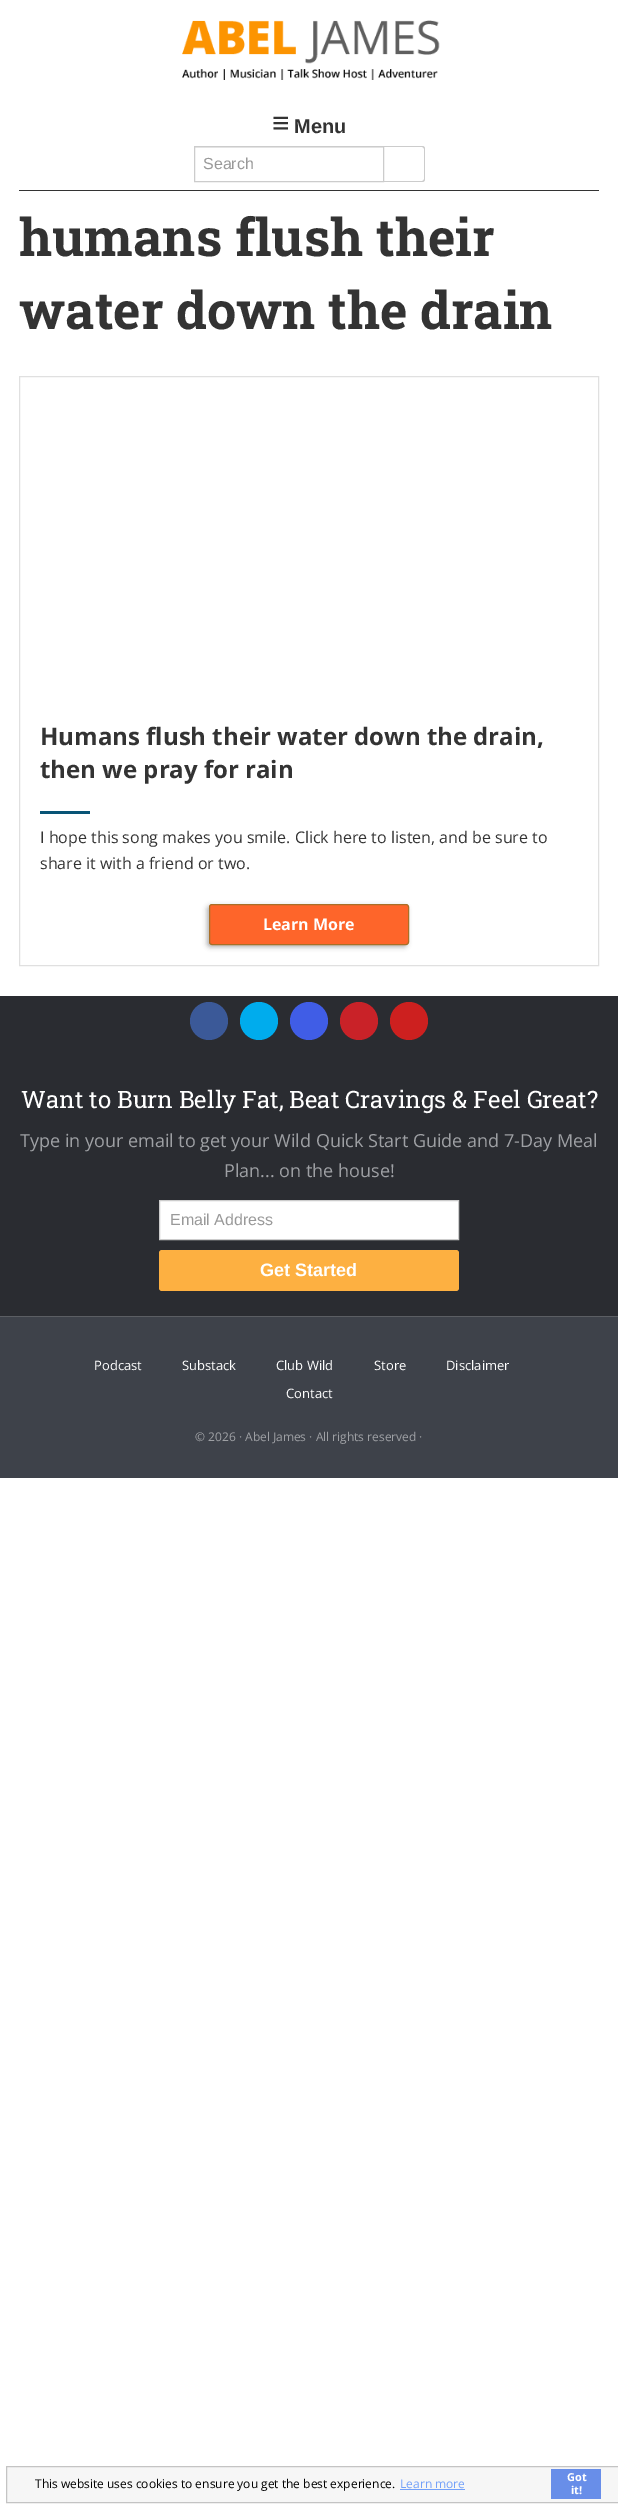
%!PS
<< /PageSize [618 2505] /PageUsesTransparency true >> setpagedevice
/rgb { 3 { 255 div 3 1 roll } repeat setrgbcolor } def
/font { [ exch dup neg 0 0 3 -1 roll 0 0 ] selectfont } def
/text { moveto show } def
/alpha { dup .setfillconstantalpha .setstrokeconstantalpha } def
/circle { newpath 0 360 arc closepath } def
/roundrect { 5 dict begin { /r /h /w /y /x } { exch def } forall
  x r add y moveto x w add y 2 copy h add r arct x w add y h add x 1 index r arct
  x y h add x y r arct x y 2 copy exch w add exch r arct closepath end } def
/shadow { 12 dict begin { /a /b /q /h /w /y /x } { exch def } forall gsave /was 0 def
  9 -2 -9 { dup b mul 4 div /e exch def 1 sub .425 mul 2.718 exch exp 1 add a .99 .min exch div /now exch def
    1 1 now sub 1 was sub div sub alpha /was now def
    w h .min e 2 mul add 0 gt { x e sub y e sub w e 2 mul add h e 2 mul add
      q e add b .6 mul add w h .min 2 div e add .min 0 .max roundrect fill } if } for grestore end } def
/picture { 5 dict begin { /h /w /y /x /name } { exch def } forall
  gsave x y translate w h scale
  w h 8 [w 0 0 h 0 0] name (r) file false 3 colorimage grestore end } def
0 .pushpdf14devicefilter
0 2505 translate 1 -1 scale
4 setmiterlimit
255 255 255 rgb
0 0 618 2505 rectfill
51 51 51 rgb
19 190 580 1 rectfill
(img_01.rgb) 182 20 258 60 picture
236 236 236 rgb
195 147 188 1 rectfill
204 204 204 rgb
194.5 146.5 189 35 rectstroke
384 146 moveto 38 0 rlineto 2 0 3 1 3 3 rcurveto 0 30 rlineto 0 2 -1 3 -3 3 rcurveto -38 0 rlineto closepath 384 147 moveto 38 0 rlineto 1 0 2 1 2 2 rcurveto 0 30 rlineto 0 1 -1 2 -2 2 rcurveto -38 0 rlineto closepath eofill
224 224 224 rgb
19.5 376.5 579 589 rectstroke
8 84 118 rgb
40 811 50 3 rectfill
0 0 0 rgb
207 906 200 41 3 2.5 0.3 shadow
254 101 42 rgb
209.5 904.5 199 40 2.5 roundrect gsave fill grestore
169 111 39 rgb
stroke
42 44 49 rgb
0 996 618 320 rectfill
91 94 99 rgb
0 1316 618 1 rectfill
59 89 152 rgb
209 1021 19 circle fill
0 172 237 rgb
259 1021 19 circle fill
64 93 230 rgb
309 1021 19 circle fill
201 34 40 rgb
359 1021 19 circle fill
205 32 31 rgb
409 1021 19 circle fill
255 255 255 rgb
159.5 1200.5 moveto 299 0 rlineto 0 39 rlineto -299 0 rlineto closepath gsave fill grestore
204 204 204 rgb
stroke
253 176 65 rgb
159 1250 300 41 3 roundrect fill
62 66 74 rgb
0 1317 618 161 rectfill
246 246 246 rgb
6.5 2466.5 moveto 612 0 rlineto 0 36 rlineto -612 0 rlineto closepath gsave fill grestore
196 196 196 rgb
stroke
116 161 249 rgb
400 2489 65 1 rectfill
104 142 233 rgb
551 2469 50 30 rectfill
/LiberationSans-Bold 30 font
51 51 51 rgb
(≡) 272 133 text
/LiberationSans-Bold 20 font
(Menu) 294 133 text
/LiberationSans-Regular 16 font
153 153 153 rgb
(Search) 203 169 text
/RobotoSlab-Bold 52 font
51 51 51 rgb
(humans flush their) 19 256 text
(water down the drain) 19 329 text
/OpenSans-Bold 24 font
(Humans flush their water down the drain,) 40 745 text
(then we pray for rain) 40 778 text
/OpenSans-Regular 16 font
(I hope this song makes you smile. Click here to listen, and be sure to) 40 843 text
(share it with a friend or two.) 40 869 text
/OpenSans-Bold 16 font
255 255 255 rgb
(Learn More) 263 930 text
/RobotoSlab-Regular 24 font
(Want to Burn Belly Fat, Beat Cravings & Feel Great?) 21 1108 text
/OpenSans-Regular 18 font
158 160 164 rgb
(Type in your email to get your Wild Quick Start Guide and 7-Day Meal) 20 1147 text
(Plan... on the house!) 224 1177 text
/LiberationSans-Regular 16 font
153 153 153 rgb
(Email Address) 170 1225 text
/LiberationSans-Bold 18 font
255 255 255 rgb
(Get Started) 260 1276 text
/OpenSans-Regular 13 font
(Podcast) 94 1370 text
(Substack) 182 1370 text
(Club Wild) 276 1370 text
(Store) 374 1370 text
(Disclaimer) 446 1370 text
(Contact) 286 1398 text
/OpenSans-Regular 12 font
158 160 164 rgb
(© 2026 · Abel James · All rights reserved ·) 195 1441 text
0 0 0 rgb
(This website uses cookies to ensure you get the best experience.) 35 2488 text
116 161 249 rgb
(Learn more) 400 2488 text
/OpenSans-Bold 11 font
255 255 255 rgb
(Got) 567 2481 text
(it!) 571 2494 text
.poppdf14devicefilter showpage
